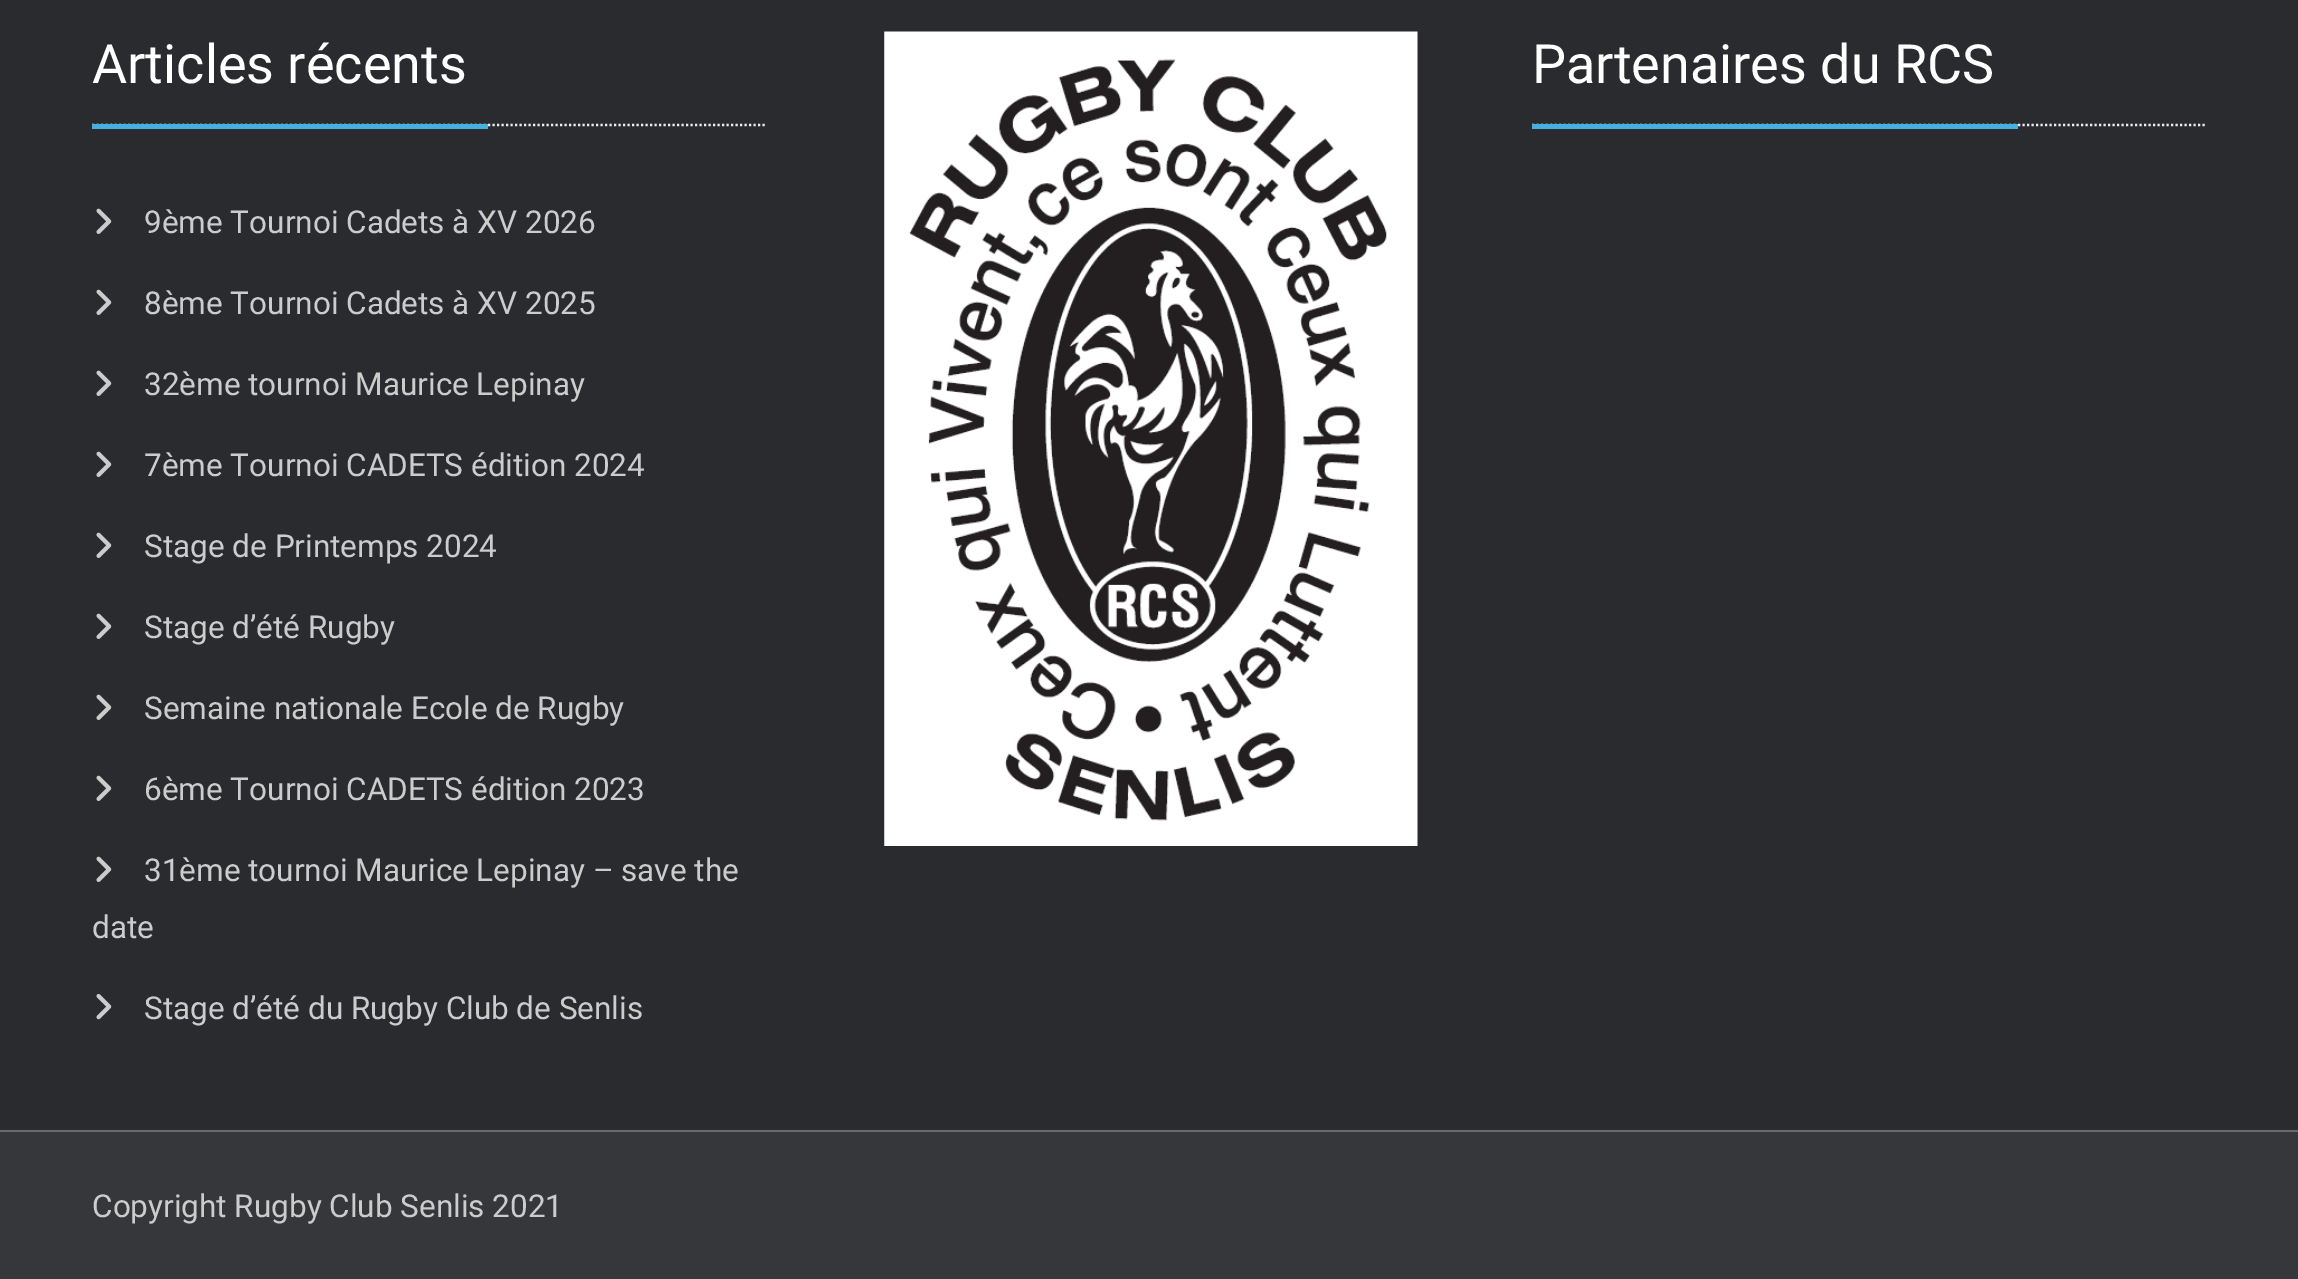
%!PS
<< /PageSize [2298 1279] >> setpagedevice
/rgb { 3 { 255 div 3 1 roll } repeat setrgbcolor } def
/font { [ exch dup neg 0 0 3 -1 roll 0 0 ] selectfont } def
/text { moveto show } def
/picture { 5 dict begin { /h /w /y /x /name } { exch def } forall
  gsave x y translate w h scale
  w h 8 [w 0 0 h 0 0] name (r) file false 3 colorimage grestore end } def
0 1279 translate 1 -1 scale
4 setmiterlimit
42 43 46 rgb
0 0 2298 1279 rectfill
238 238 238 rgb
2.2 setlinewidth
[2.25 2.25] 0 setdash
92 125 moveto 675 0 rlineto stroke
70 177 225 rgb
92 124 396 5 rectfill
(img_01.rgb) 96 208 16 26 picture
(img_01.rgb) 96 289 16 26 picture
(img_01.rgb) 96 370 16 26 picture
(img_01.rgb) 96 451 16 26 picture
(img_01.rgb) 96 532 16 26 picture
(img_01.rgb) 96 613 16 26 picture
(img_01.rgb) 96 694 16 26 picture
(img_01.rgb) 96 775 16 26 picture
(img_01.rgb) 96 856 16 26 picture
(img_02.rgb) 96 994 16 26 picture
(img_03.rgb) 884 31 534 815 picture
238 238 238 rgb
1532 125 moveto 675 0 rlineto stroke
70 177 225 rgb
1532 124 486 5 rectfill
54 55 58 rgb
0 1132 2298 147 rectfill
106 106 107 rgb
0 1130 2298 2 rectfill
/Roboto-Regular 54 font
255 255 255 rgb
(Articles récents) 92 83 text
/Roboto-Regular 31.5 font
204 204 204 rgb
(9ème Tournoi Cadets à XV 2026) 144 233 text
(8ème Tournoi Cadets à XV 2025) 144 314 text
(32ème tournoi Maurice Lepinay) 144 395 text
(7ème Tournoi CADETS édition 2024) 144 476 text
(Stage de Printemps 2024) 144 557 text
(Stage d’été Rugby) 144 638 text
(Semaine nationale Ecole de Rugby) 144 719 text
(6ème Tournoi CADETS édition 2023) 144 800 text
(31ème tournoi Maurice Lepinay – save the) 144 881 text
(date) 92 938 text
(Stage d’été du Rugby Club de Senlis) 144 1019 text
/Roboto-Regular 54 font
255 255 255 rgb
(Partenaires du RCS) 1532 83 text
/Roboto-Regular 31.5 font
204 204 204 rgb
(Copyright Rugby Club Senlis 2021) 92 1217 text
showpage
